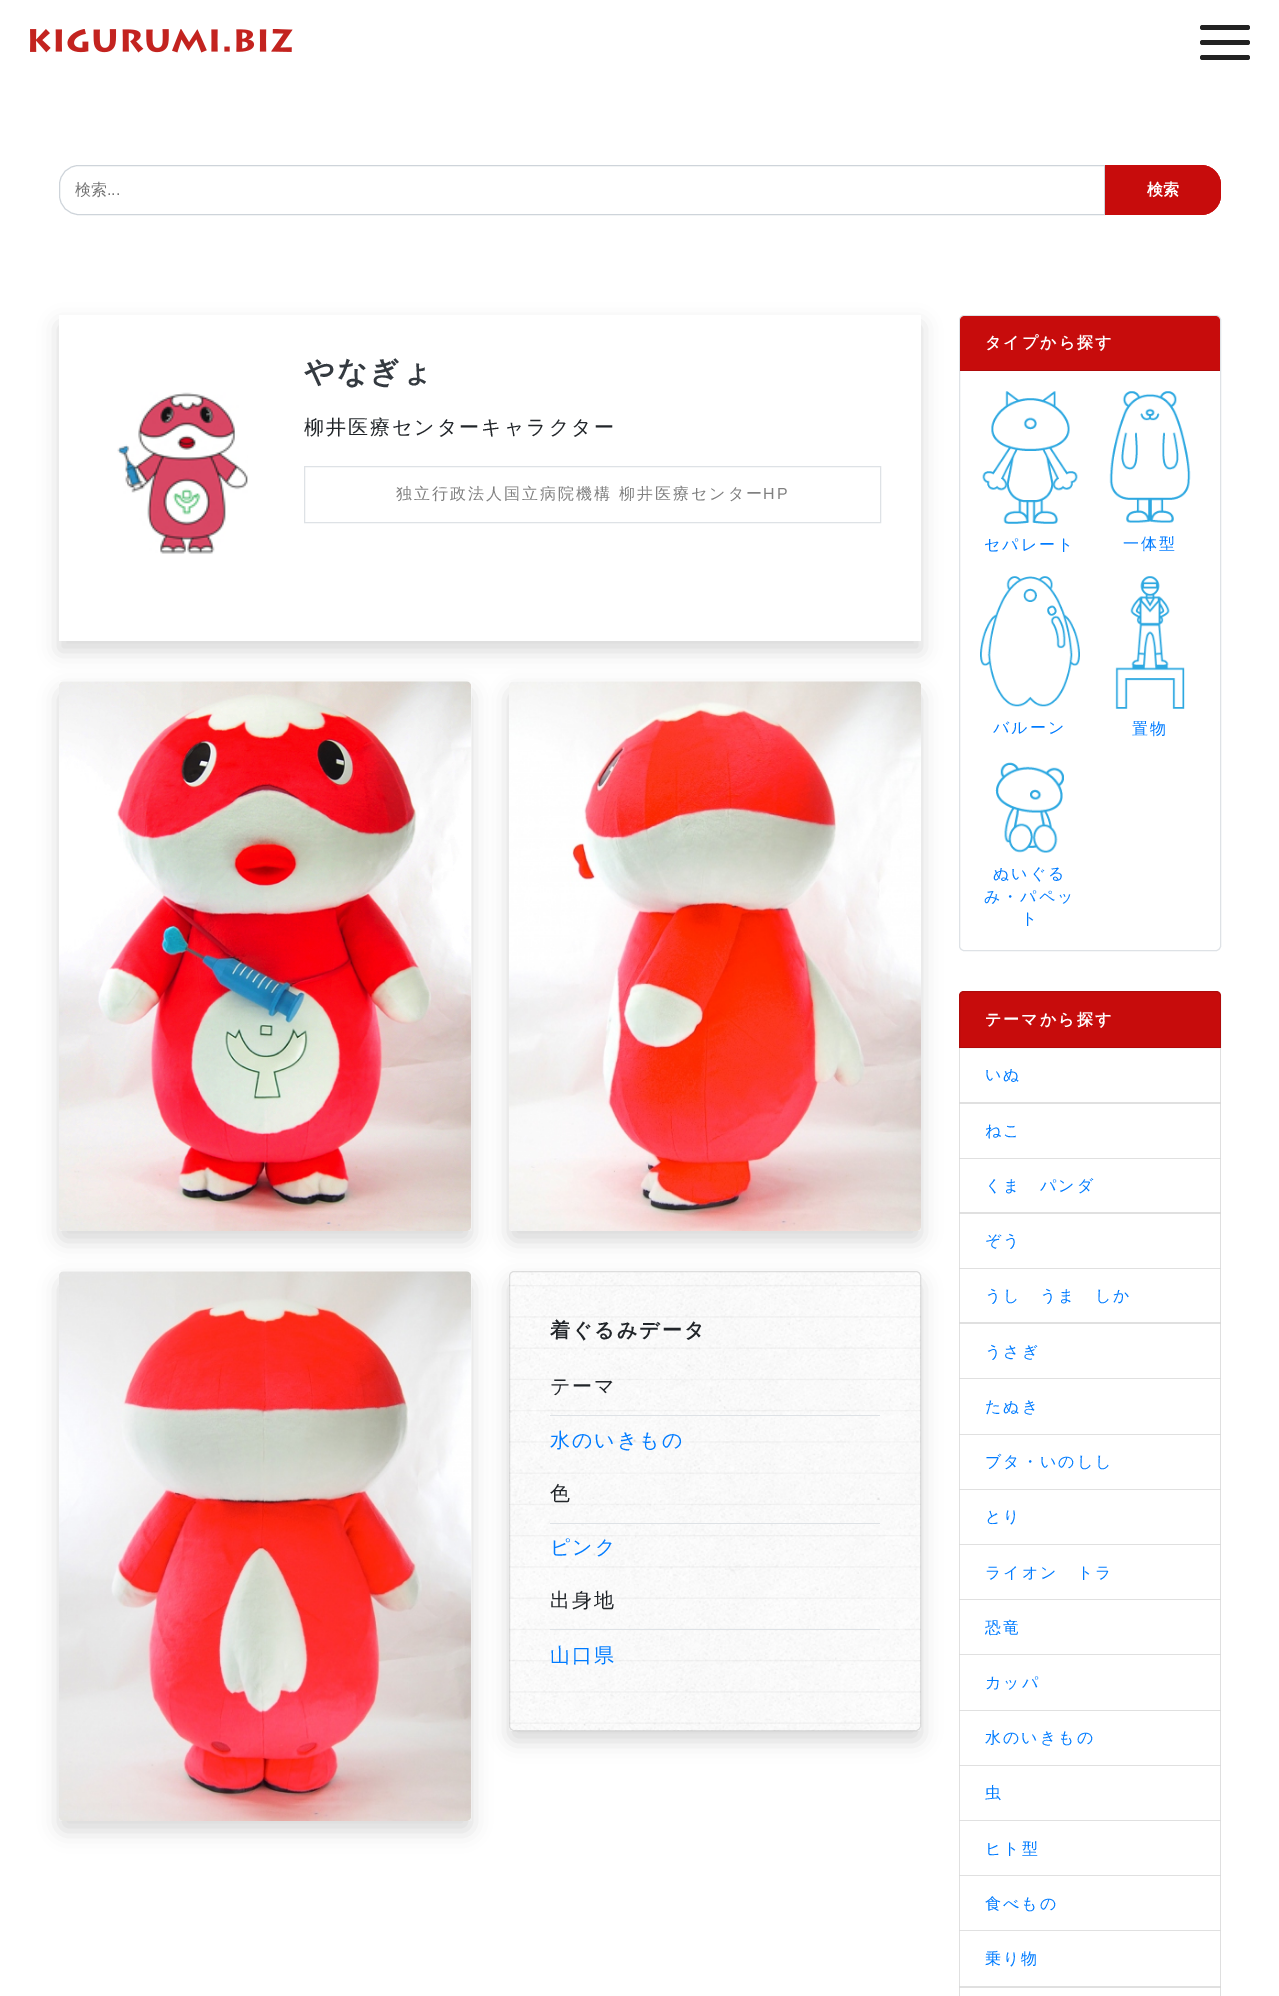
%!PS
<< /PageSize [1279 1996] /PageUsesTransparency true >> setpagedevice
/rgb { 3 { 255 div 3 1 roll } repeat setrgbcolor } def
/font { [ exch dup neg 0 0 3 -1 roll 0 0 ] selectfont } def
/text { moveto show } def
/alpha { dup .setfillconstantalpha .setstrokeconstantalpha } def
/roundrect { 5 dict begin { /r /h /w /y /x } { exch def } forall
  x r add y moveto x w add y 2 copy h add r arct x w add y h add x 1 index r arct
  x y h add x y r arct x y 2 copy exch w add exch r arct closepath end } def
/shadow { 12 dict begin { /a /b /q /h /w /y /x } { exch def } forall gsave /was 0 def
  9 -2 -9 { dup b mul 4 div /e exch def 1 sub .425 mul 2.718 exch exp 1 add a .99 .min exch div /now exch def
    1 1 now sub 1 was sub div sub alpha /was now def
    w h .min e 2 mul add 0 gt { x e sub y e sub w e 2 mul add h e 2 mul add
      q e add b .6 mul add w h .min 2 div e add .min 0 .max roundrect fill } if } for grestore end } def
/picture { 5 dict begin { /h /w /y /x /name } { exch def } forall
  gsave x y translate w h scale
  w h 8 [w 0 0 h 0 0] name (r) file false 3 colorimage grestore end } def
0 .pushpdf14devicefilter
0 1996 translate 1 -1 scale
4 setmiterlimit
255 255 255 rgb
0 0 1279 1996 rectfill
(img_01.rgb) 30 29 263 24 picture
34 34 34 rgb
1200 25 50 5 2.5 roundrect fill
1200 40 50 5 2.5 roundrect fill
1200 55 50 5 2.5 roundrect fill
206 212 218 rgb
79 165.5 moveto 1025.5 0 rlineto 0 49 rlineto -1025.5 0 rlineto -11 0 -19.5 -8.5 -19.5 -19.5 rcurveto 0 -10 rlineto 0 -11 8.5 -19.5 19.5 -19.5 rcurveto closepath stroke
199 12 12 rgb
1105 165 moveto 96 0 rlineto 11 0 20 9 20 20 rcurveto 0 10 rlineto 0 11 -9 20 -20 20 rcurveto -96 0 rlineto closepath fill
1105 165 moveto 96 0 rlineto 11 0 20 9 20 20 rcurveto 0 10 rlineto 0 11 -9 20 -20 20 rcurveto -96 0 rlineto closepath 1105 166 moveto 96 0 rlineto 11 0 19 9 19 19 rcurveto 0 10 rlineto 0 10 -8 19 -19 19 rcurveto -96 0 rlineto closepath eofill
gsave
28 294 moveto 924 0 rlineto 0 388 rlineto -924 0 rlineto closepath 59 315 moveto 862 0 rlineto 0 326 rlineto -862 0 rlineto closepath eoclip newpath
0 0 0 rgb
59 325 862 326 0 10 0.15 shadow
grestore
(img_02.rgb) 117 392 131 162 picture
222 226 230 rgb
304.5 466.5 576 56 rectstroke
0 0 0 rgb
59 691 412 550 5 10 0.15 shadow
(img_03.rgb) 59 681 413 550 picture
509 691 412 550 5 10 0.15 shadow
(img_04.rgb) 509 681 412 550 picture
59 1281 412 550 5 10 0.15 shadow
(img_05.rgb) 59 1271 413 550 picture
509 1281 412 460 5 10 0.15 shadow
255 255 255 rgb
509 1271 412 460 5 roundrect fill
(img_06.rgb) 509 1271 412 460 picture
0.12 alpha
0 0 0 rgb
509.5 1271.5 411 459 4.5 roundrect stroke
1 alpha
222 226 230 rgb
550 1415 330 1 rectfill
550 1523 330 1 rectfill
550 1629 330 1 rectfill
959.5 315.5 261 635 4.5 roundrect stroke
199 12 12 rgb
965 316 moveto 250 0 rlineto 3 0 5 2 5 5 rcurveto 0 50 rlineto -260 0 rlineto 0 -50 rlineto 0 -3 2 -5 5 -5 rcurveto closepath fill
174 11 11 rgb
960 370 260 1 rectfill
(img_07.rgb) 982 391 96 133 picture
(img_08.rgb) 1109 391 82 132 picture
(img_09.rgb) 980 576 100 131 picture
(img_10.rgb) 1115 576 70 133 picture
(img_11.rgb) 995 762 69 91 picture
199 12 12 rgb
964 991 moveto 252 0 rlineto 3 0 5 2 5 5 rcurveto 0 52 rlineto -262 0 rlineto 0 -52 rlineto 0 -3 2 -5 5 -5 rcurveto closepath fill
0.12 alpha
0 0 0 rgb
964 991.5 moveto 252 0 rlineto 2.5 0 4.5 2 4.5 4.5 rcurveto 0 51.5 rlineto -261 0 rlineto 0 -51.5 rlineto 0 -2.5 2 -4.5 4.5 -4.5 rcurveto closepath stroke
1 alpha
223 223 223 rgb
1221 1048 moveto 0 56 rlineto -1 -2 rlineto 0 -54 rlineto closepath fill
0.12 alpha
0 0 0 rgb
1221 1104 moveto -262 0 rlineto 1 -2 rlineto 260 0 rlineto closepath fill
959 1104 moveto 0 -56 rlineto 1 0 rlineto 0 54 rlineto closepath fill
1 alpha
223 223 223 rgb
1221 1104 moveto 0 55 rlineto -1 -1 rlineto 0 -54 rlineto closepath fill
0.12 alpha
0 0 0 rgb
1221 1159 moveto -262 0 rlineto 1 -1 rlineto 260 0 rlineto closepath fill
959 1159 moveto 0 -55 rlineto 1 0 rlineto 0 54 rlineto closepath fill
1 alpha
223 223 223 rgb
1221 1159 moveto 0 55 rlineto -1 -2 rlineto 0 -53 rlineto closepath fill
0.12 alpha
0 0 0 rgb
1221 1214 moveto -262 0 rlineto 1 -2 rlineto 260 0 rlineto closepath fill
959 1214 moveto 0 -55 rlineto 1 0 rlineto 0 53 rlineto closepath fill
1 alpha
223 223 223 rgb
1221 1214 moveto 0 55 rlineto -1 -1 rlineto 0 -54 rlineto closepath fill
0.12 alpha
0 0 0 rgb
1221 1269 moveto -262 0 rlineto 1 -1 rlineto 260 0 rlineto closepath fill
959 1269 moveto 0 -55 rlineto 1 0 rlineto 0 54 rlineto closepath fill
1 alpha
223 223 223 rgb
1221 1269 moveto 0 55 rlineto -1 -2 rlineto 0 -53 rlineto closepath fill
0.12 alpha
0 0 0 rgb
1221 1324 moveto -262 0 rlineto 1 -2 rlineto 260 0 rlineto closepath fill
959 1324 moveto 0 -55 rlineto 1 0 rlineto 0 53 rlineto closepath fill
1 alpha
223 223 223 rgb
1221 1324 moveto 0 55 rlineto -1 -1 rlineto 0 -54 rlineto closepath fill
0.12 alpha
0 0 0 rgb
1221 1379 moveto -262 0 rlineto 1 -1 rlineto 260 0 rlineto closepath fill
959 1379 moveto 0 -55 rlineto 1 0 rlineto 0 54 rlineto closepath fill
1 alpha
223 223 223 rgb
1221 1379 moveto 0 56 rlineto -1 -1 rlineto 0 -55 rlineto closepath fill
0.12 alpha
0 0 0 rgb
1221 1435 moveto -262 0 rlineto 1 -1 rlineto 260 0 rlineto closepath fill
959 1435 moveto 0 -56 rlineto 1 0 rlineto 0 55 rlineto closepath fill
1 alpha
223 223 223 rgb
1221 1435 moveto 0 55 rlineto -1 -1 rlineto 0 -54 rlineto closepath fill
0.12 alpha
0 0 0 rgb
1221 1490 moveto -262 0 rlineto 1 -1 rlineto 260 0 rlineto closepath fill
959 1490 moveto 0 -55 rlineto 1 0 rlineto 0 54 rlineto closepath fill
1 alpha
223 223 223 rgb
1221 1490 moveto 0 55 rlineto -1 -1 rlineto 0 -54 rlineto closepath fill
0.12 alpha
0 0 0 rgb
1221 1545 moveto -262 0 rlineto 1 -1 rlineto 260 0 rlineto closepath fill
959 1545 moveto 0 -55 rlineto 1 0 rlineto 0 54 rlineto closepath fill
1 alpha
223 223 223 rgb
1221 1545 moveto 0 55 rlineto -1 -1 rlineto 0 -54 rlineto closepath fill
0.12 alpha
0 0 0 rgb
1221 1600 moveto -262 0 rlineto 1 -1 rlineto 260 0 rlineto closepath fill
959 1600 moveto 0 -55 rlineto 1 0 rlineto 0 54 rlineto closepath fill
1 alpha
223 223 223 rgb
1221 1600 moveto 0 55 rlineto -1 -1 rlineto 0 -54 rlineto closepath fill
0.12 alpha
0 0 0 rgb
1221 1655 moveto -262 0 rlineto 1 -1 rlineto 260 0 rlineto closepath fill
959 1655 moveto 0 -55 rlineto 1 0 rlineto 0 54 rlineto closepath fill
1 alpha
223 223 223 rgb
1221 1655 moveto 0 56 rlineto -1 -1 rlineto 0 -55 rlineto closepath fill
0.12 alpha
0 0 0 rgb
1221 1711 moveto -262 0 rlineto 1 -1 rlineto 260 0 rlineto closepath fill
959 1711 moveto 0 -56 rlineto 1 0 rlineto 0 55 rlineto closepath fill
1 alpha
223 223 223 rgb
1221 1711 moveto 0 55 rlineto -1 -1 rlineto 0 -54 rlineto closepath fill
0.12 alpha
0 0 0 rgb
1221 1766 moveto -262 0 rlineto 1 -1 rlineto 260 0 rlineto closepath fill
959 1766 moveto 0 -55 rlineto 1 0 rlineto 0 54 rlineto closepath fill
1 alpha
223 223 223 rgb
1221 1766 moveto 0 55 rlineto -1 -1 rlineto 0 -54 rlineto closepath fill
0.12 alpha
0 0 0 rgb
1221 1821 moveto -262 0 rlineto 1 -1 rlineto 260 0 rlineto closepath fill
959 1821 moveto 0 -55 rlineto 1 0 rlineto 0 54 rlineto closepath fill
1 alpha
223 223 223 rgb
1221 1821 moveto 0 55 rlineto -1 -1 rlineto 0 -54 rlineto closepath fill
0.12 alpha
0 0 0 rgb
1221 1876 moveto -262 0 rlineto 1 -1 rlineto 260 0 rlineto closepath fill
959 1876 moveto 0 -55 rlineto 1 0 rlineto 0 54 rlineto closepath fill
1 alpha
223 223 223 rgb
1221 1876 moveto 0 55 rlineto -1 -1 rlineto 0 -54 rlineto closepath fill
0.12 alpha
0 0 0 rgb
1221 1931 moveto -262 0 rlineto 1 -1 rlineto 260 0 rlineto closepath fill
959 1931 moveto 0 -55 rlineto 1 0 rlineto 0 54 rlineto closepath fill
1 alpha
223 223 223 rgb
1221 1931 moveto 0 57 rlineto -1 -2 rlineto 0 -55 rlineto closepath fill
0.12 alpha
0 0 0 rgb
1221 1988 moveto -262 0 rlineto 1 -2 rlineto 260 0 rlineto closepath fill
959 1988 moveto 0 -57 rlineto 1 0 rlineto 0 55 rlineto closepath fill
1 alpha
223 223 223 rgb
1221 1988 moveto 0 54 rlineto -1 -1 rlineto 0 -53 rlineto closepath fill
959 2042 moveto 0 -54 rlineto 1 0 rlineto 0 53 rlineto closepath fill
/WenQuanYiZenHei-Medium 16 font
117 117 117 rgb
(検索) 75 195 text
/LiberationSans-Regular 16 font
(...) 107 195 text
/WenQuanYiZenHei-Bold 16 font
255 255 255 rgb
(検索) 1147 195 text
/WenQuanYiZenHei-Bold 30 font
52 58 64 rgb
304 382 moveto 2 0 (やなぎょ) ashow
/WenQuanYiZenHei-Medium 20 font
33 37 41 rgb
304 434 moveto 2 0 (柳井医療センターキャラクター) ashow
/WenQuanYiZenHei-Medium 16 font
128 128 128 rgb
396 499 moveto 2 0 (独立行政法人国立病院機構 柳井医療センター) ashow
/LiberationSans-Regular 16 font
763 499 moveto 2 0 (HP) ashow
/WenQuanYiZenHei-Bold 20 font
33 37 41 rgb
550 1337 moveto 2 0 (着ぐるみデータ) ashow
/WenQuanYiZenHei-Medium 20 font
550 1393 moveto 2 0 (テーマ) ashow
0 123 255 rgb
550 1447 moveto 2 0 (水のいきもの) ashow
33 37 41 rgb
550 1500 moveto 2 0 (色) ashow
0 123 255 rgb
550 1554 moveto 2 0 (ピンク) ashow
33 37 41 rgb
550 1607 moveto 2 0 (出身地) ashow
0 123 255 rgb
550 1662 moveto 2 0 (山口県) ashow
/WenQuanYiZenHei-Bold 16 font
255 255 255 rgb
985 348 moveto 2 0 (タイプから探す) ashow
/WenQuanYiZenHei-Medium 16 font
0 123 255 rgb
984 550 moveto 2 0 (セパレート) ashow
1123 549 moveto 2 0 (一体型) ashow
993 733 moveto 2 0 (バルーン) ashow
1132 734 moveto 2 0 (置物) ashow
993 879 moveto 2 0 (ぬいぐる) ashow
984 902 moveto 2 0 (み・パペッ) ashow
1021 924 moveto 2 0 (ト) ashow
/WenQuanYiZenHei-Bold 16 font
255 255 255 rgb
985 1025 moveto 2 0 (テーマから探す) ashow
/WenQuanYiZenHei-Medium 16 font
0 123 255 rgb
985 1080 moveto 2 0 (いぬ) ashow
985 1136 moveto 2 0 (ねこ) ashow
985 1191 moveto 2 0 (くま　パンダ) ashow
985 1246 moveto 2 0 (ぞう) ashow
985 1301 moveto 2 0 (うし　うま　しか) ashow
985 1357 moveto 2 0 (うさぎ) ashow
985 1412 moveto 2 0 (たぬき) ashow
985 1467 moveto 2 0 (ブタ・いのしし) ashow
985 1522 moveto 2 0 (とり) ashow
985 1578 moveto 2 0 (ライオン　トラ) ashow
985 1633 moveto 2 0 (恐竜) ashow
985 1688 moveto 2 0 (カッパ) ashow
985 1743 moveto 2 0 (水のいきもの) ashow
985 1798 moveto 2 0 (虫) ashow
985 1854 moveto 2 0 (ヒト型) ashow
985 1909 moveto 2 0 (食べもの) ashow
985 1964 moveto 2 0 (乗り物) ashow
.poppdf14devicefilter showpage
